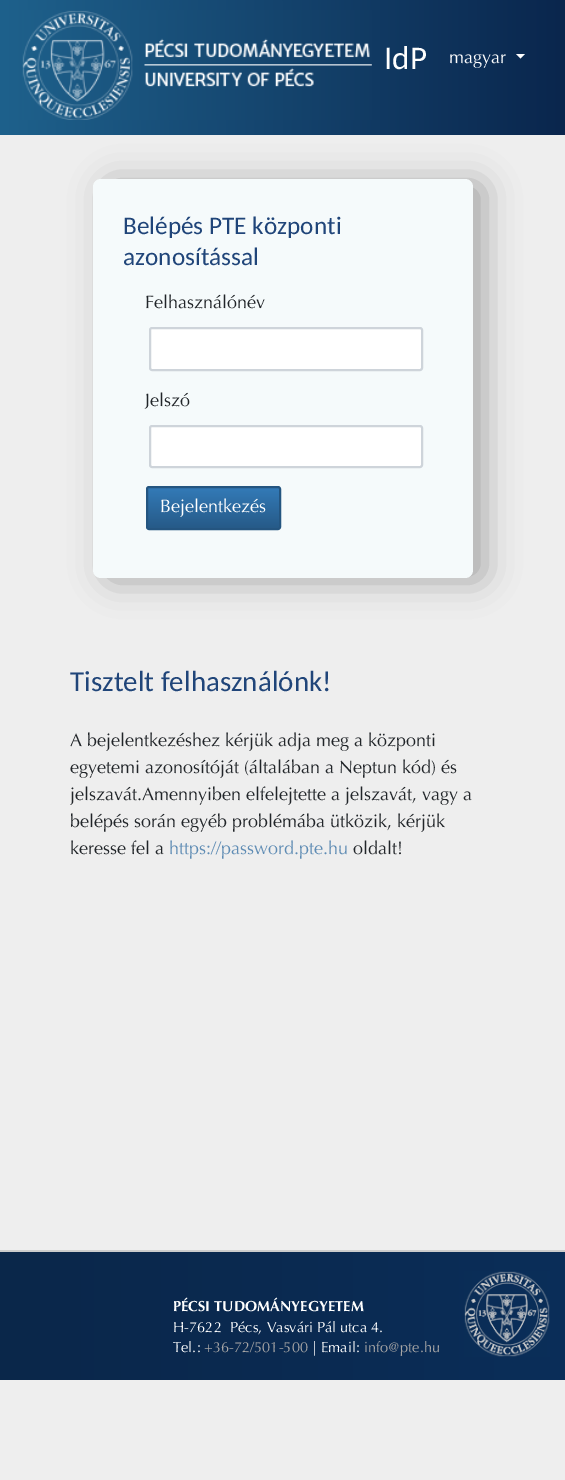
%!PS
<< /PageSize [565 1480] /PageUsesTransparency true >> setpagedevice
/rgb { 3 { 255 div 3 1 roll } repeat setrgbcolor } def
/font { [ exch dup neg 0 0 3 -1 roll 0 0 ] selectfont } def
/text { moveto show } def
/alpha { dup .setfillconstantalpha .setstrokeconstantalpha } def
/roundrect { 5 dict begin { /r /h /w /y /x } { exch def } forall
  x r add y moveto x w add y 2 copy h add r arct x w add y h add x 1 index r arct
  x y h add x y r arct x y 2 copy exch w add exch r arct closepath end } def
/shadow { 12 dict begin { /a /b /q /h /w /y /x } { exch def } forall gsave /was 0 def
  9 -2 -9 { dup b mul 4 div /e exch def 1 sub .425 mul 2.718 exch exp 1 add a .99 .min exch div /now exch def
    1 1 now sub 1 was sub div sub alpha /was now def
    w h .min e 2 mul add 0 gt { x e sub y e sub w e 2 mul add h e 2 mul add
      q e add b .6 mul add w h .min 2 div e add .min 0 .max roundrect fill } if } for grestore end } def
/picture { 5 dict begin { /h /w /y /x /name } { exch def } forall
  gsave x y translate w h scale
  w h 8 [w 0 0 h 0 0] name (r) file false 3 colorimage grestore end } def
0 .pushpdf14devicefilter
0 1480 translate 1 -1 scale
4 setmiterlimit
238 238 238 rgb
0 0 565 1480 rectfill
gsave 0 0 moveto 565 0 rlineto 0 135 rlineto -565 0 rlineto closepath clip newpath
<< /ShadingType 2 /ColorSpace /DeviceRGB /Coords [0 63 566 63] /Extend [true true] /Function << /FunctionType 2 /Domain [0 1] /C0 [0.118 0.38 0.549] /C1 [0.039 0.149 0.302] /N 1 >> >> shfill grestore
(img_01.rgb) 22 10 350 110 picture
255 255 255 rgb
516 54 moveto 9 0 rlineto -4.5 4.5 rlineto closepath fill
0 0 0 rgb
105 182 380 399 8 17 0.3 shadow
245 250 251 rgb
93 179 380 399 8 roundrect fill
255 255 255 rgb
151 329 270 40 rectfill
206 212 218 rgb
2 setlinewidth
150 328 272 42 2 roundrect stroke
255 255 255 rgb
151 427 270 39 rectfill
206 212 218 rgb
150 426 272 41 2 roundrect stroke
gsave
146 486 135 44 3 roundrect clip newpath
gsave 146 488 moveto 135 0 rlineto 0 40 rlineto -135 0 rlineto closepath clip newpath
<< /ShadingType 2 /ColorSpace /DeviceRGB /Coords [213 488 213 528] /Extend [true true] /Function << /FunctionType 2 /Domain [0 1] /C0 [0.2 0.478 0.718] /C1 [0.149 0.353 0.533] /N 1 >> >> shfill grestore
grestore
36 85 128 rgb
147 487 133 42 2 roundrect stroke
gsave 0 1252 moveto 565 0 rlineto 0 128 rlineto -565 0 rlineto closepath clip newpath
<< /ShadingType 2 /ColorSpace /DeviceRGB /Coords [0 1316 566 1316] /Extend [true true] /Function << /FunctionType 2 /Domain [0 1] /C0 [0.039 0.153 0.29] /C1 [0.039 0.18 0.349] /N 1 >> >> shfill grestore
204 204 204 rgb
0 1250 565 2 rectfill
(img_02.rgb) 464 1271 86 86 picture
/Carlito-Regular 33 font
255 255 255 rgb
(IdP) 384 69 text
/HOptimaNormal-Regular 18 font
(magyar) 449 63 text
/Carlito-Regular 25.25 font
32 69 121 rgb
(Belépés PTE központi) 123 234 text
(azonosítással) 123 265 text
/HOptimaNormal-Regular 18 font
33 37 41 rgb
(Felhasználónév) 145 308 text
(Jelszó) 145 406 text
255 255 255 rgb
(Bejelentkezés) 160 512 text
/Carlito-Regular 29 font
32 69 121 rgb
(Tisztelt felhasználónk!) 70 691 text
/HOptimaNormal-Regular 18 font
33 37 41 rgb
(A bejelentkezéshez kérjük adja meg a központi) 70 746 text
(egyetemi azonosítóját \(általában a Neptun kód\) és) 70 773 text
(jelszavát.Amennyiben elfelejtette a jelszavát, vagy a) 70 800 text
(belépés során egyéb problémába ütközik, kérjük) 70 827 text
(keresse fel a) 70 854 text
95 140 180 rgb
(https://password.pte.hu) 169 854 text
33 37 41 rgb
(oldalt!) 353 854 text
/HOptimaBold-Bold 14.6 font
255 255 255 rgb
(PÉCSI TUDOMÁNYEGYETEM) 173 1311 text
/HOptimaNormal-Regular 14.6 font
(H-7622) 173 1332 text
(Pécs, Vasvári Pál utca 4.) 230 1332 text
(Tel.:) 173 1352 text
166 165 165 rgb
(+36-72/501-500) 204 1352 text
255 255 255 rgb
(| Email:) 312 1352 text
166 165 165 rgb
(info@pte.hu) 364 1352 text
.poppdf14devicefilter showpage
